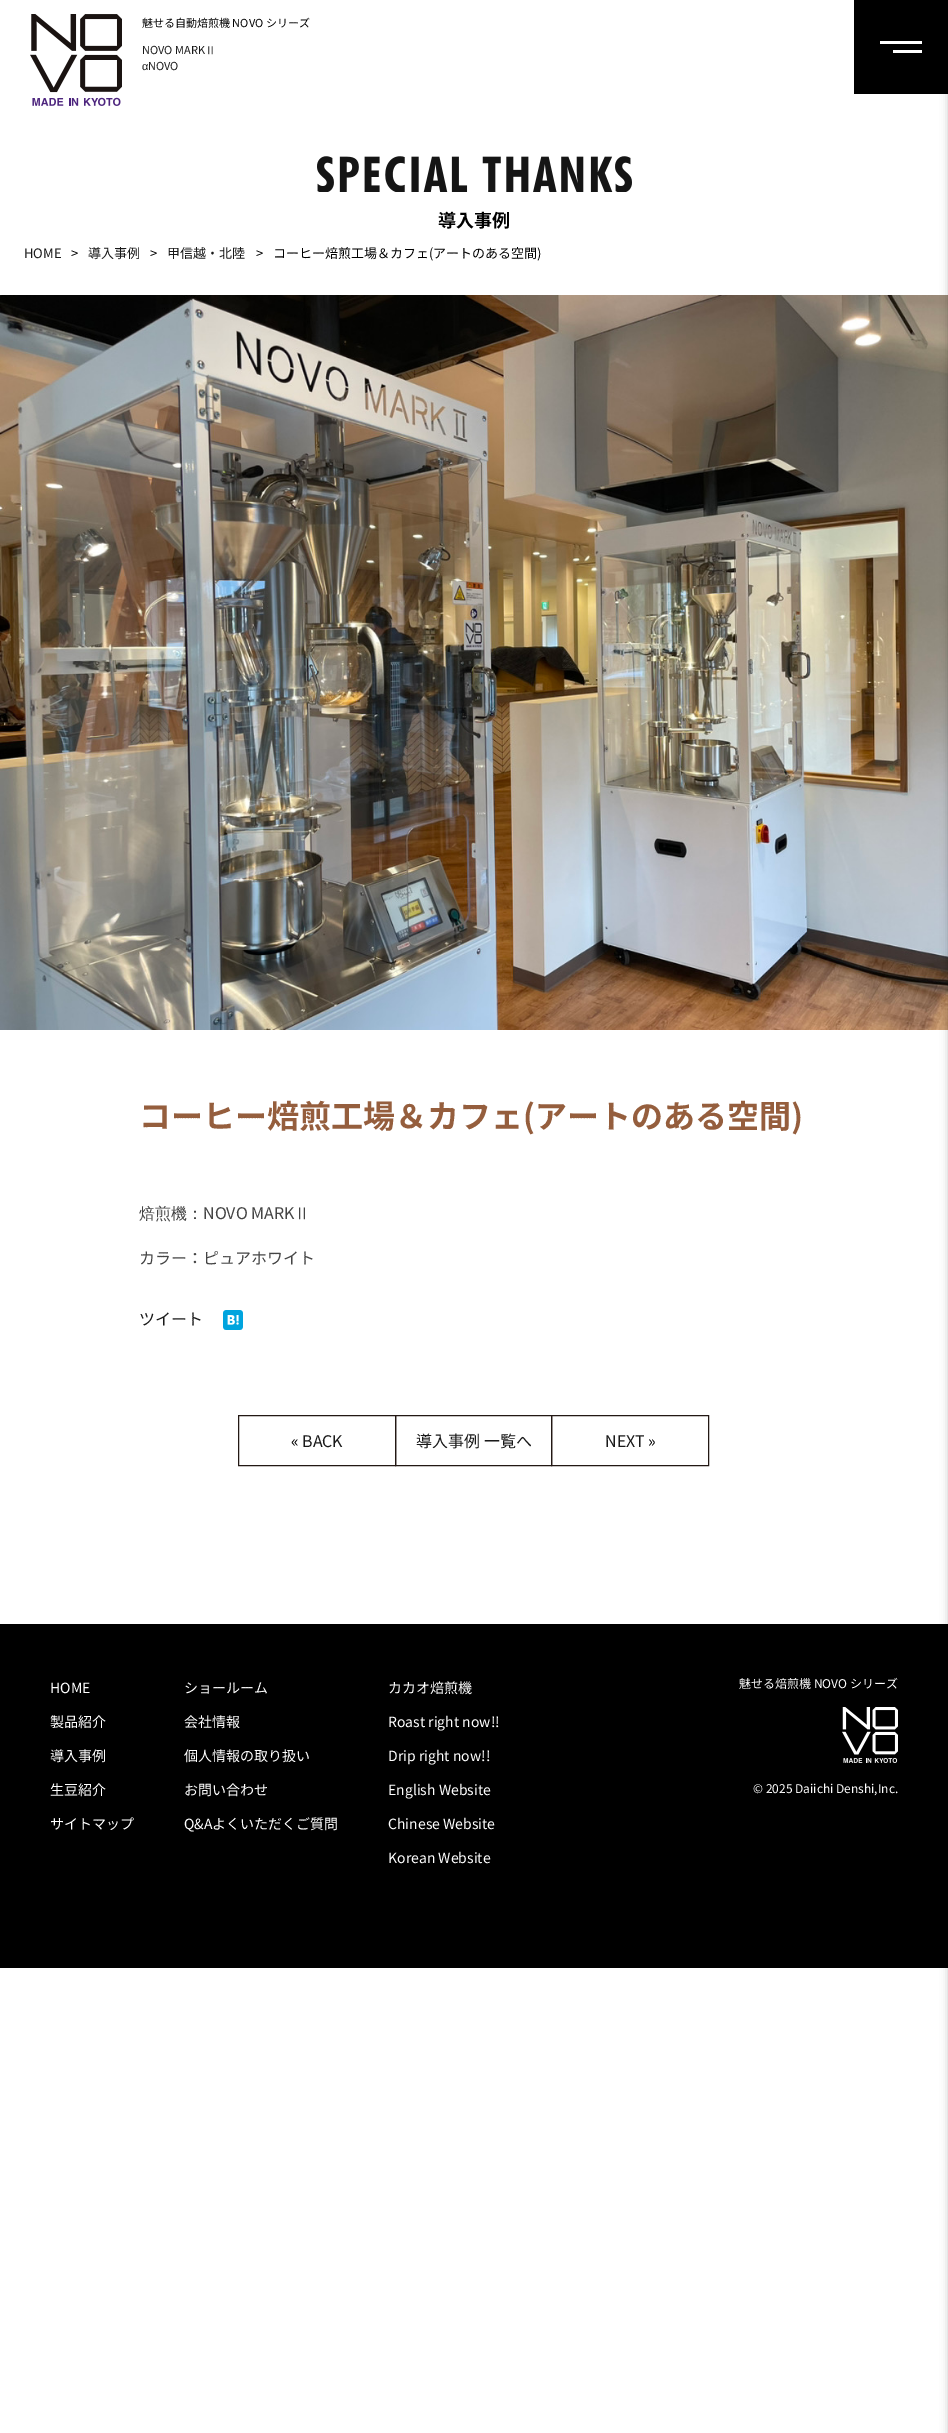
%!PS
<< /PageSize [948 2433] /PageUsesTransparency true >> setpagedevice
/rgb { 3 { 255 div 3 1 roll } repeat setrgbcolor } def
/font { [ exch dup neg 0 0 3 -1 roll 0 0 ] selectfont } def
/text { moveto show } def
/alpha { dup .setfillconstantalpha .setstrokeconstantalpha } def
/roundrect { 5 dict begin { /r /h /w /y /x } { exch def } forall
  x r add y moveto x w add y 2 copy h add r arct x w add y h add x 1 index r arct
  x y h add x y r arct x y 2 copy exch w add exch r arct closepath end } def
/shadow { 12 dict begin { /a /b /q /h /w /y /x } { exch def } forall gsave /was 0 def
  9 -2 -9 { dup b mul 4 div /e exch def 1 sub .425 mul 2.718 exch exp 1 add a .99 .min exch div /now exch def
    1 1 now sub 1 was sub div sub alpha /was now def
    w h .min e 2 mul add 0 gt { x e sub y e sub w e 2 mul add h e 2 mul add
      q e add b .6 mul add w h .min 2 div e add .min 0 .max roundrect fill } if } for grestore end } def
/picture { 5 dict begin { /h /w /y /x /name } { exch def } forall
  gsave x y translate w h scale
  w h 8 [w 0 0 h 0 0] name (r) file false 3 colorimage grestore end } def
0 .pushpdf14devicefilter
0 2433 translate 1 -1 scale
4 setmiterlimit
255 255 255 rgb
0 0 948 2433 rectfill
(img_01.rgb) 30 14 92 92 picture
(img_03.rgb) 0 295 948 735 picture
0 0 0 rgb
0 1624 948 344 rectfill
948 1 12 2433 0 4 0.2 shadow
854 0 94 94 rectfill
255 255 255 rgb
880 41 42 3 rectfill
893 50 29 3 rectfill
(img_02.rgb) 317 156 315 36 picture
(img_04.rgb) 223 1310 20 20 picture
35 24 20 rgb
238.5 1415.5 157 50 rectstroke
395.5 1415.5 156 50 rectstroke
551.5 1415.5 157 50 rectstroke
(img_05.rgb) 842 1707 56 56 picture
/NotoSansJP-Regular 11 font
0 0 0 rgb
(魅せる自動焙煎機 NOVO シリーズ) 142 27 text
25 25 25 rgb
(NOVO MARK) 142 54 text
/WenQuanYiZenHei-Medium 11 font
(Ⅱ) 205 54 text
/LiberationSans-Regular 11 font
(α) 142 70 text
/NotoSansJP-Regular 11 font
(NOVO) 148 70 text
/NotoSansJP-Bold 18 font
0 0 0 rgb
(導入事例) 438 227 text
/NotoSansJP-Regular 13 font
25 25 25 rgb
(HOME) 24 258 text
0 0 0 rgb
(>) 71 258 text
25 25 25 rgb
(導入事例) 88 258 text
0 0 0 rgb
(>) 150 258 text
25 25 25 rgb
(甲信越・北陸) 167 258 text
0 0 0 rgb
(>) 256 258 text
(コーヒー焙煎工場＆カフェ\(アートのある空間\)) 273 258 text
/NotoSansJP-Bold 32 font
149 94 61 rgb
(コーヒー焙煎工場＆カフェ\(アートのある空間\)) 139 1128 text
/WenQuanYiZenHei-Medium 16 font
68 68 68 rgb
(焙煎機：) 139 1219 text
/NotoSansJP-Regular 16 font
(NOVO MARK) 203 1219 text
/WenQuanYiZenHei-Medium 16 font
(Ⅱ) 294 1219 text
/NotoSansJP-Regular 16 font
(カラー：ピュアホワイト) 139 1264 text
25 25 25 rgb
(ツイート) 139 1325 text
0 0 0 rgb
(«) 291 1447 text
25 25 25 rgb
(BACK) 302 1447 text
(導入事例 一覧へ) 416 1447 text
(NEXT) 605 1447 text
0 0 0 rgb
(») 648 1447 text
/NotoSansJP-Regular 14 font
255 255 255 rgb
(HOME) 50 1693 text
(製品紹介) 50 1727 text
(導入事例) 50 1761 text
(生豆紹介) 50 1795 text
(サイトマップ) 50 1829 text
(ショールーム) 184 1693 text
(会社情報) 184 1727 text
(個人情報の取り扱い) 184 1761 text
(お問い合わせ) 184 1795 text
(Q&Aよくいただくご質問) 184 1829 text
(カカオ焙煎機) 388 1693 text
(Roast right now!!) 388 1727 text
(Drip right now!!) 388 1761 text
(English Website) 388 1795 text
(Chinese Website) 388 1829 text
(Korean Website) 388 1863 text
/NotoSansJP-Regular 12 font
(魅せる焙煎機 NOVO シリーズ) 739 1688 text
(© 2025 Daiichi Denshi,Inc.) 753 1793 text
.poppdf14devicefilter showpage
